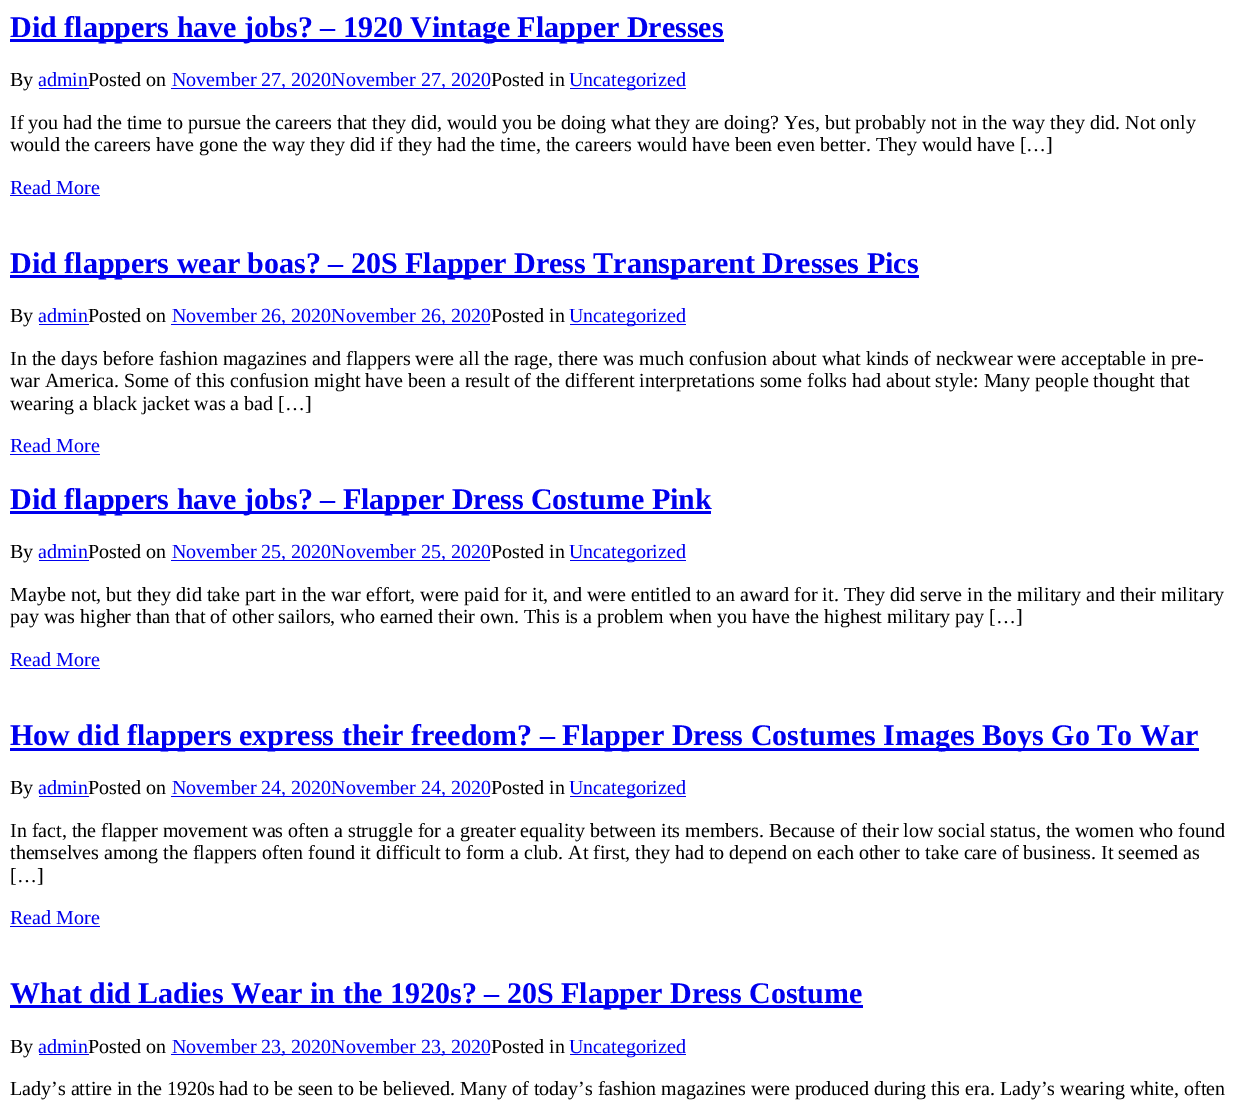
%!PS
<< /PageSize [1241 1113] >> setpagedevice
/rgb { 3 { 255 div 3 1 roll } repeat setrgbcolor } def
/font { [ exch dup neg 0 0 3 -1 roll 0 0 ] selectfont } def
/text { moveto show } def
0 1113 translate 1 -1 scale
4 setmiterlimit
255 255 255 rgb
0 0 1241 1113 rectfill
0 0 238 rgb
10 39 714 3 rectfill
39 88 50 1 rectfill
171 88 319 1 rectfill
570 88 116 1 rectfill
10 195 90 1 rectfill
10 275 909 3 rectfill
39 324 50 1 rectfill
171 324 319 1 rectfill
570 324 116 1 rectfill
10 454 90 1 rectfill
10 511 701 3 rectfill
39 560 50 1 rectfill
171 560 319 1 rectfill
570 560 116 1 rectfill
10 668 90 1 rectfill
10 748 1189 3 rectfill
39 796 50 1 rectfill
171 796 319 1 rectfill
570 796 116 1 rectfill
10 926 90 1 rectfill
10 1005 853 3 rectfill
39 1054 50 1 rectfill
171 1054 319 1 rectfill
570 1054 116 1 rectfill
/LiberationSerif-Bold 30 font
(Did flappers have jobs? – 1920 Vintage Flapper Dresses) 10 37 text
/LiberationSerif-Regular 20 font
0 0 0 rgb
(By) 10 86 text
0 0 238 rgb
(admin) 38 86 text
0 0 0 rgb
(Posted on) 88 86 text
0 0 238 rgb
(November 27, 2020November 27, 2020) 172 86 text
0 0 0 rgb
(Posted in) 491 86 text
0 0 238 rgb
(Uncategorized) 569 86 text
0 0 0 rgb
(If you had the time to pursue the careers that they did, would you be doing what they are doing? Yes, but probably not in the way they did. Not only) 10 129 text
(would the careers have gone the way they did if they had the time, the careers would have been even better. They would have […]) 10 151 text
0 0 238 rgb
(Read More) 10 194 text
/LiberationSerif-Bold 30 font
(Did flappers wear boas? – 20S Flapper Dress Transparent Dresses Pics) 10 273 text
/LiberationSerif-Regular 20 font
0 0 0 rgb
(By) 10 322 text
0 0 238 rgb
(admin) 38 322 text
0 0 0 rgb
(Posted on) 88 322 text
0 0 238 rgb
(November 26, 2020November 26, 2020) 172 322 text
0 0 0 rgb
(Posted in) 491 322 text
0 0 238 rgb
(Uncategorized) 569 322 text
0 0 0 rgb
(In the days before fashion magazines and flappers were all the rage, there was much confusion about what kinds of neckwear were acceptable in pre-) 10 365 text
(war America. Some of this confusion might have been a result of the different interpretations some folks had about style: Many people thought that) 10 387 text
(wearing a black jacket was a bad […]) 10 410 text
0 0 238 rgb
(Read More) 10 452 text
/LiberationSerif-Bold 30 font
(Did flappers have jobs? – Flapper Dress Costume Pink) 10 509 text
/LiberationSerif-Regular 20 font
0 0 0 rgb
(By) 10 558 text
0 0 238 rgb
(admin) 38 558 text
0 0 0 rgb
(Posted on) 88 558 text
0 0 238 rgb
(November 25, 2020November 25, 2020) 172 558 text
0 0 0 rgb
(Posted in) 491 558 text
0 0 238 rgb
(Uncategorized) 569 558 text
0 0 0 rgb
(Maybe not, but they did take part in the war effort, were paid for it, and were entitled to an award for it. They did serve in the military and their military) 10 601 text
(pay was higher than that of other sailors, who earned their own. This is a problem when you have the highest military pay […]) 10 623 text
0 0 238 rgb
(Read More) 10 666 text
/LiberationSerif-Bold 30 font
(How did flappers express their freedom? – Flapper Dress Costumes Images Boys Go To War) 10 745 text
/LiberationSerif-Regular 20 font
0 0 0 rgb
(By) 10 794 text
0 0 238 rgb
(admin) 38 794 text
0 0 0 rgb
(Posted on) 88 794 text
0 0 238 rgb
(November 24, 2020November 24, 2020) 172 794 text
0 0 0 rgb
(Posted in) 491 794 text
0 0 238 rgb
(Uncategorized) 569 794 text
0 0 0 rgb
(In fact, the flapper movement was often a struggle for a greater equality between its members. Because of their low social status, the women who found) 10 837 text
(themselves among the flappers often found it difficult to form a club. At first, they had to depend on each other to take care of business. It seemed as) 10 859 text
([…]) 10 882 text
0 0 238 rgb
(Read More) 10 924 text
/LiberationSerif-Bold 30 font
(What did Ladies Wear in the 1920s? – 20S Flapper Dress Costume) 10 1003 text
/LiberationSerif-Regular 20 font
0 0 0 rgb
(By) 10 1053 text
0 0 238 rgb
(admin) 38 1053 text
0 0 0 rgb
(Posted on) 88 1053 text
0 0 238 rgb
(November 23, 2020November 23, 2020) 172 1053 text
0 0 0 rgb
(Posted in) 491 1053 text
0 0 238 rgb
(Uncategorized) 569 1053 text
0 0 0 rgb
(Lady’s attire in the 1920s had to be seen to be believed. Many of today’s fashion magazines were produced during this era. Lady’s wearing white, often) 10 1095 text
showpage
